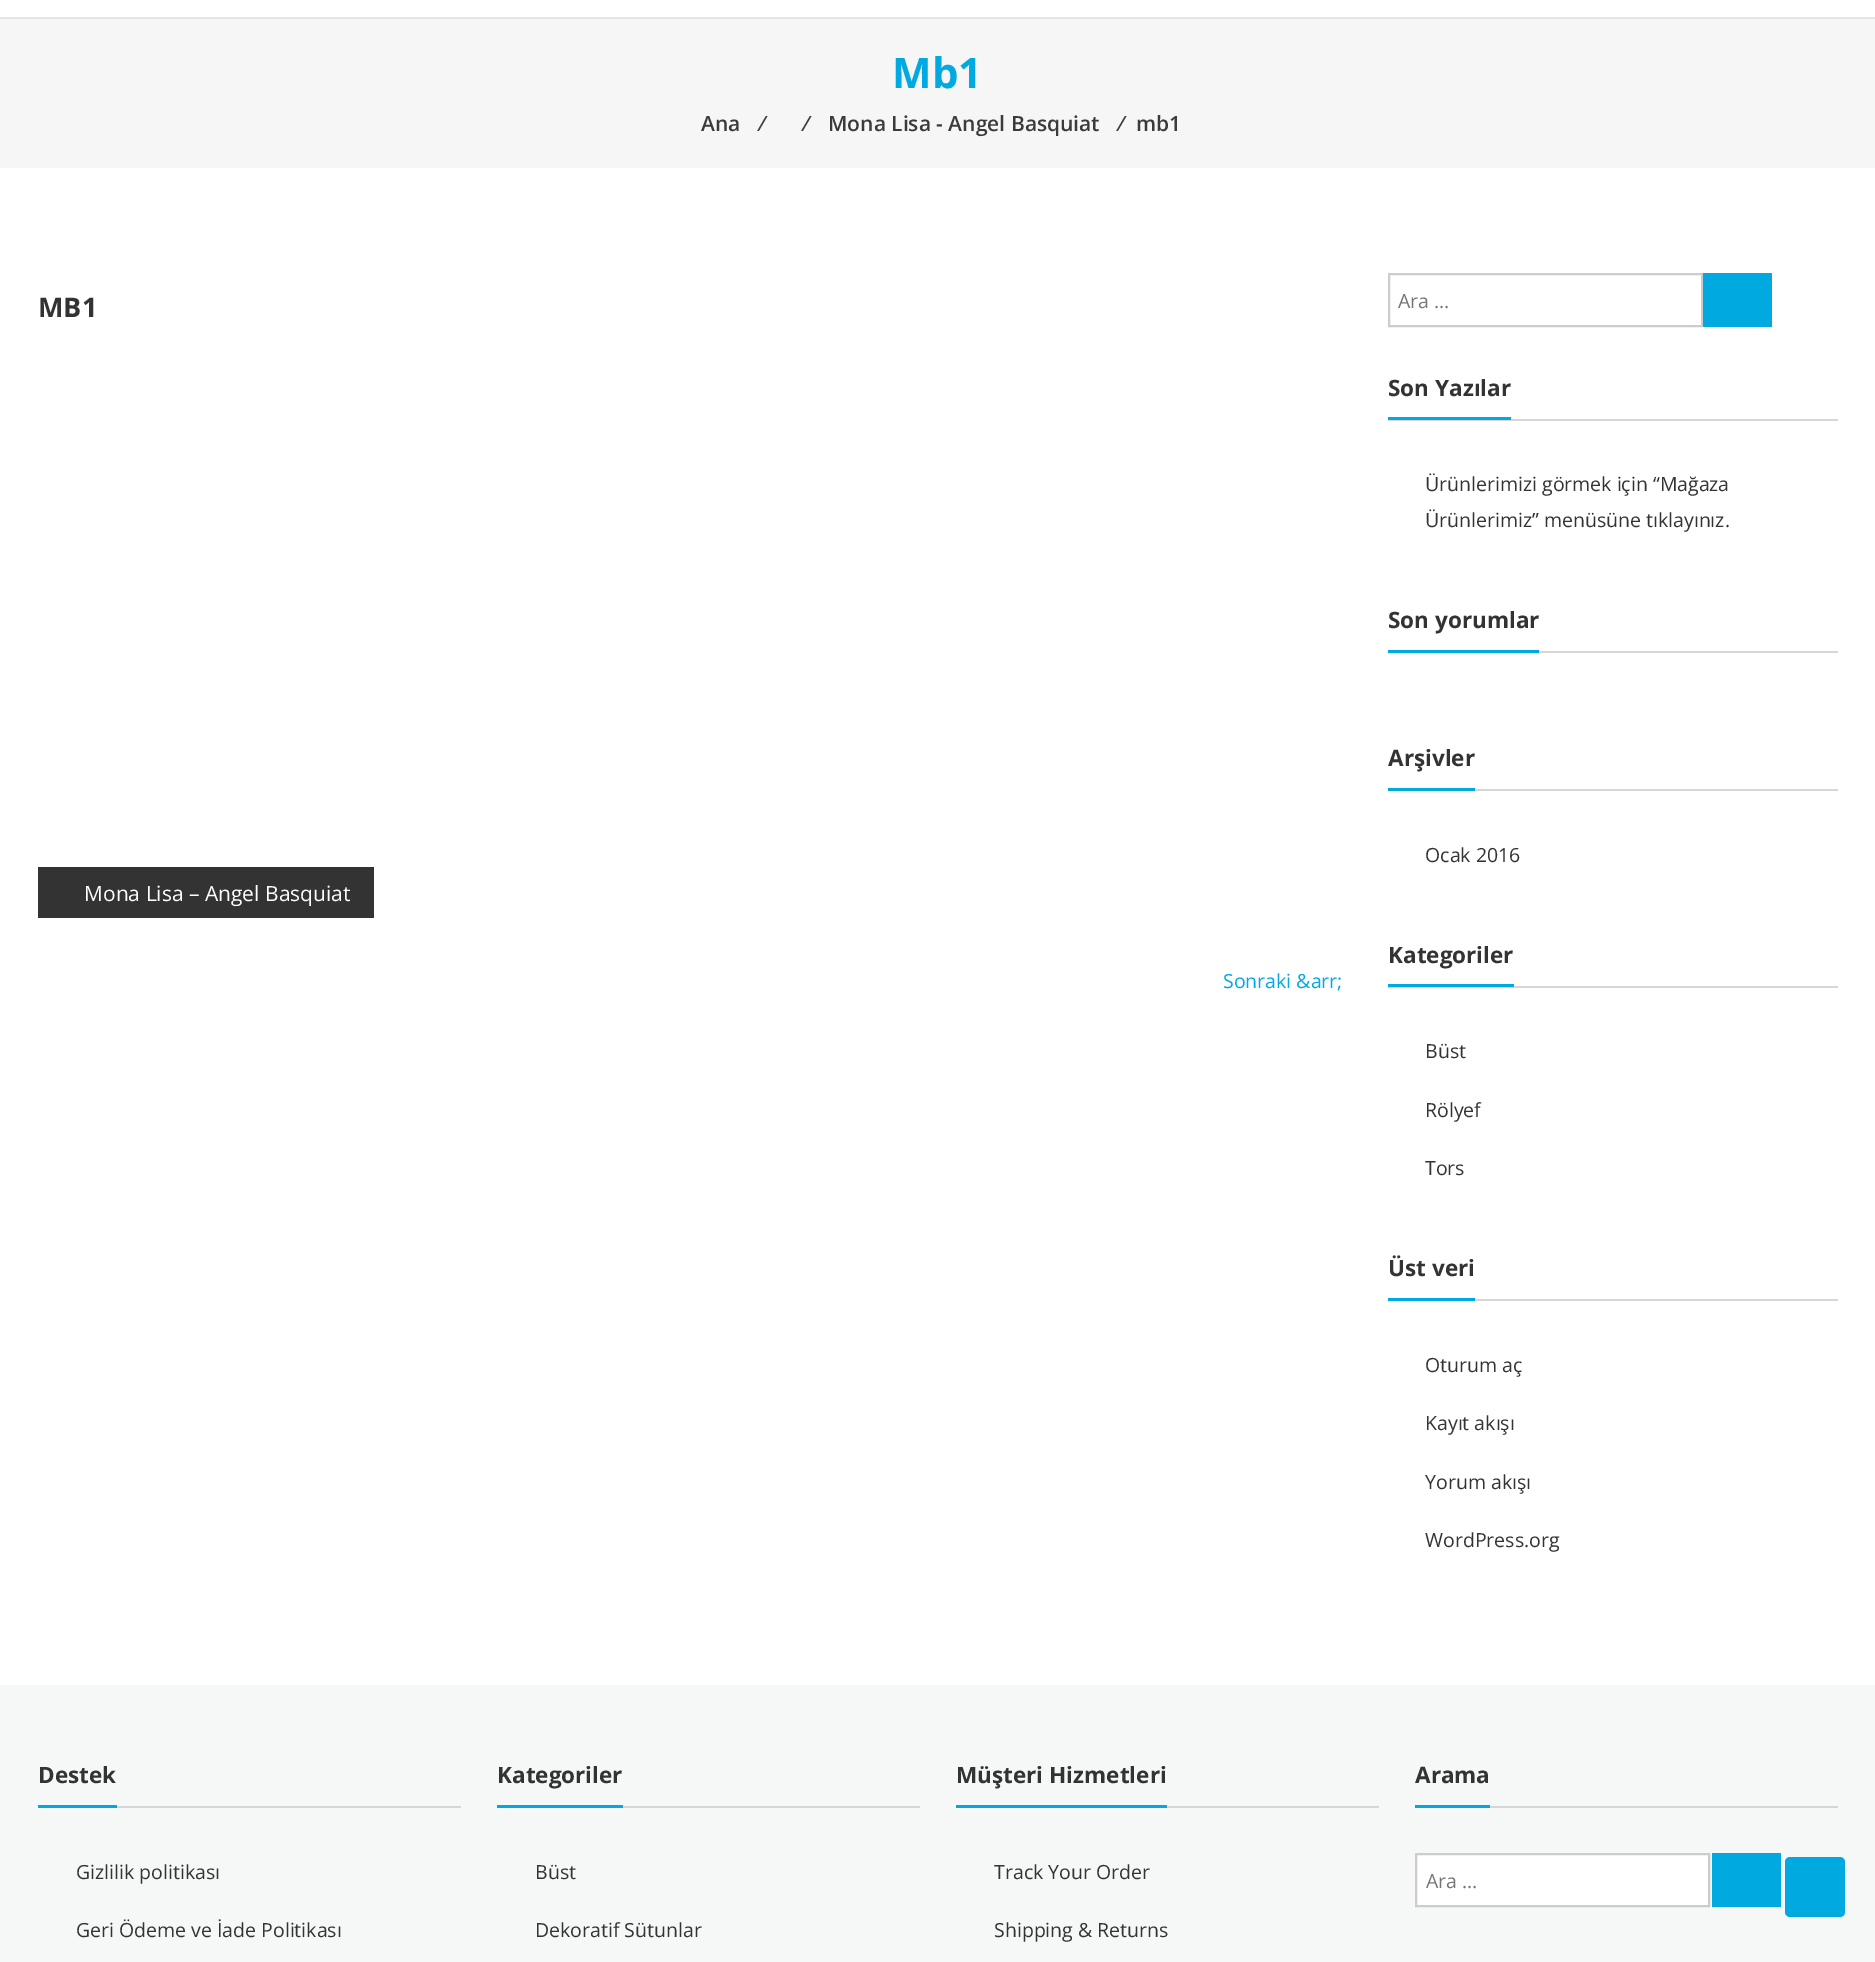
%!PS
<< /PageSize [1875 1962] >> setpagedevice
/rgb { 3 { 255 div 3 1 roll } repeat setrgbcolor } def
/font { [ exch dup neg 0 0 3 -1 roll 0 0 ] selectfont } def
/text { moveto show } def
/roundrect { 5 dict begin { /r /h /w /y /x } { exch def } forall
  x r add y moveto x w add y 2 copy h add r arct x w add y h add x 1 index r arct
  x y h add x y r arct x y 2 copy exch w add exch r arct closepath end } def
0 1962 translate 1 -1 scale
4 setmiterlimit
255 255 255 rgb
0 0 1875 1962 rectfill
229 229 229 rgb
0 17 1875 2 rectfill
246 246 246 rgb
0 19 1875 149 rectfill
51 51 51 rgb
38 867 336 51 rectfill
204 204 204 rgb
2 setlinewidth
1389 274 313 52 rectstroke
0 169 224 rgb
1703 273 69 54 rectfill
214 214 214 rgb
1388 419 450 2 rectfill
0 169 224 rgb
1388 417 123 3 rectfill
214 214 214 rgb
1539 651 299 2 rectfill
0 169 224 rgb
1388 650 151 3 rectfill
214 214 214 rgb
1475 789 363 2 rectfill
0 169 224 rgb
1388 788 87 3 rectfill
214 214 214 rgb
1388 986 450 2 rectfill
0 169 224 rgb
1388 984 126 3 rectfill
214 214 214 rgb
1475 1299 363 2 rectfill
0 169 224 rgb
1388 1298 87 3 rectfill
246 247 247 rgb
0 1685 1875 277 rectfill
214 214 214 rgb
117 1806 344 2 rectfill
0 169 224 rgb
38 1805 79 3 rectfill
214 214 214 rgb
623 1806 297 2 rectfill
0 169 224 rgb
497 1805 126 3 rectfill
214 214 214 rgb
1167 1806 212 2 rectfill
0 169 224 rgb
956 1805 211 3 rectfill
214 214 214 rgb
1490 1806 348 2 rectfill
0 169 224 rgb
1415 1805 75 3 rectfill
255 255 255 rgb
1416 1854 moveto 293 0 rlineto 0 52 rlineto -293 0 rlineto closepath gsave fill grestore
204 204 204 rgb
stroke
0 169 224 rgb
1712 1853 69 54 rectfill
1785 1857 60 60 5 roundrect fill
/OpenSans-Bold 42 font
(Mb1) 892 88 text
/OpenSans-SemiBold 21 font
59 59 59 rgb
(Ana) 701 131 text
(⁄) 761 131 text
(⁄) 805 131 text
(Mona Lisa - Angel Basquiat) 828 131 text
(⁄) 1120 131 text
(mb1) 1136 131 text
/OpenSans-Bold 27 font
51 51 51 rgb
(MB1) 38 317 text
/OpenSans-Regular 21 font
255 255 255 rgb
(Mona Lisa – Angel Basquiat) 84 901 text
/OpenSans-Regular 19.5 font
0 169 224 rgb
(Sonraki &arr;) 1223 988 text
117 117 117 rgb
(Ara …) 1398 308 text
/OpenSans-Bold 22.5 font
51 51 51 rgb
(Son Yazılar) 1388 396 text
/OpenSans-Regular 19.5 font
(Ürünlerimizi görmek için “Mağaza) 1425 491 text
(Ürünlerimiz” menüsüne tıklayınız.) 1425 527 text
/OpenSans-Bold 22.5 font
(Son yorumlar) 1388 628 text
(Arşivler) 1388 766 text
/OpenSans-Regular 19.5 font
(Ocak 2016) 1425 862 text
/OpenSans-Bold 22.5 font
(Kategoriler) 1388 963 text
/OpenSans-Regular 19.5 font
(Büst) 1425 1058 text
(Rölyef) 1425 1117 text
(Tors) 1425 1175 text
/OpenSans-Bold 22.5 font
(Üst veri) 1388 1276 text
/OpenSans-Regular 19.5 font
(Oturum aç) 1425 1372 text
(Kayıt akışı) 1425 1430 text
(Yorum akışı) 1425 1489 text
(WordPress.org) 1425 1547 text
/OpenSans-Bold 22.5 font
(Destek) 38 1783 text
/OpenSans-Regular 19.5 font
(Gizlilik politikası) 76 1879 text
(Geri Ödeme ve İade Politikası) 76 1937 text
/OpenSans-Bold 22.5 font
(Kategoriler) 497 1783 text
/OpenSans-Regular 19.5 font
(Büst) 535 1879 text
(Dekoratif Sütunlar) 535 1937 text
/OpenSans-Bold 22.5 font
(Müşteri Hizmetleri) 956 1783 text
/OpenSans-Regular 19.5 font
(Track Your Order) 994 1879 text
(Shipping & Returns) 994 1937 text
/OpenSans-Bold 22.5 font
(Arama) 1415 1783 text
/OpenSans-Regular 19.5 font
117 117 117 rgb
(Ara …) 1426 1888 text
showpage
